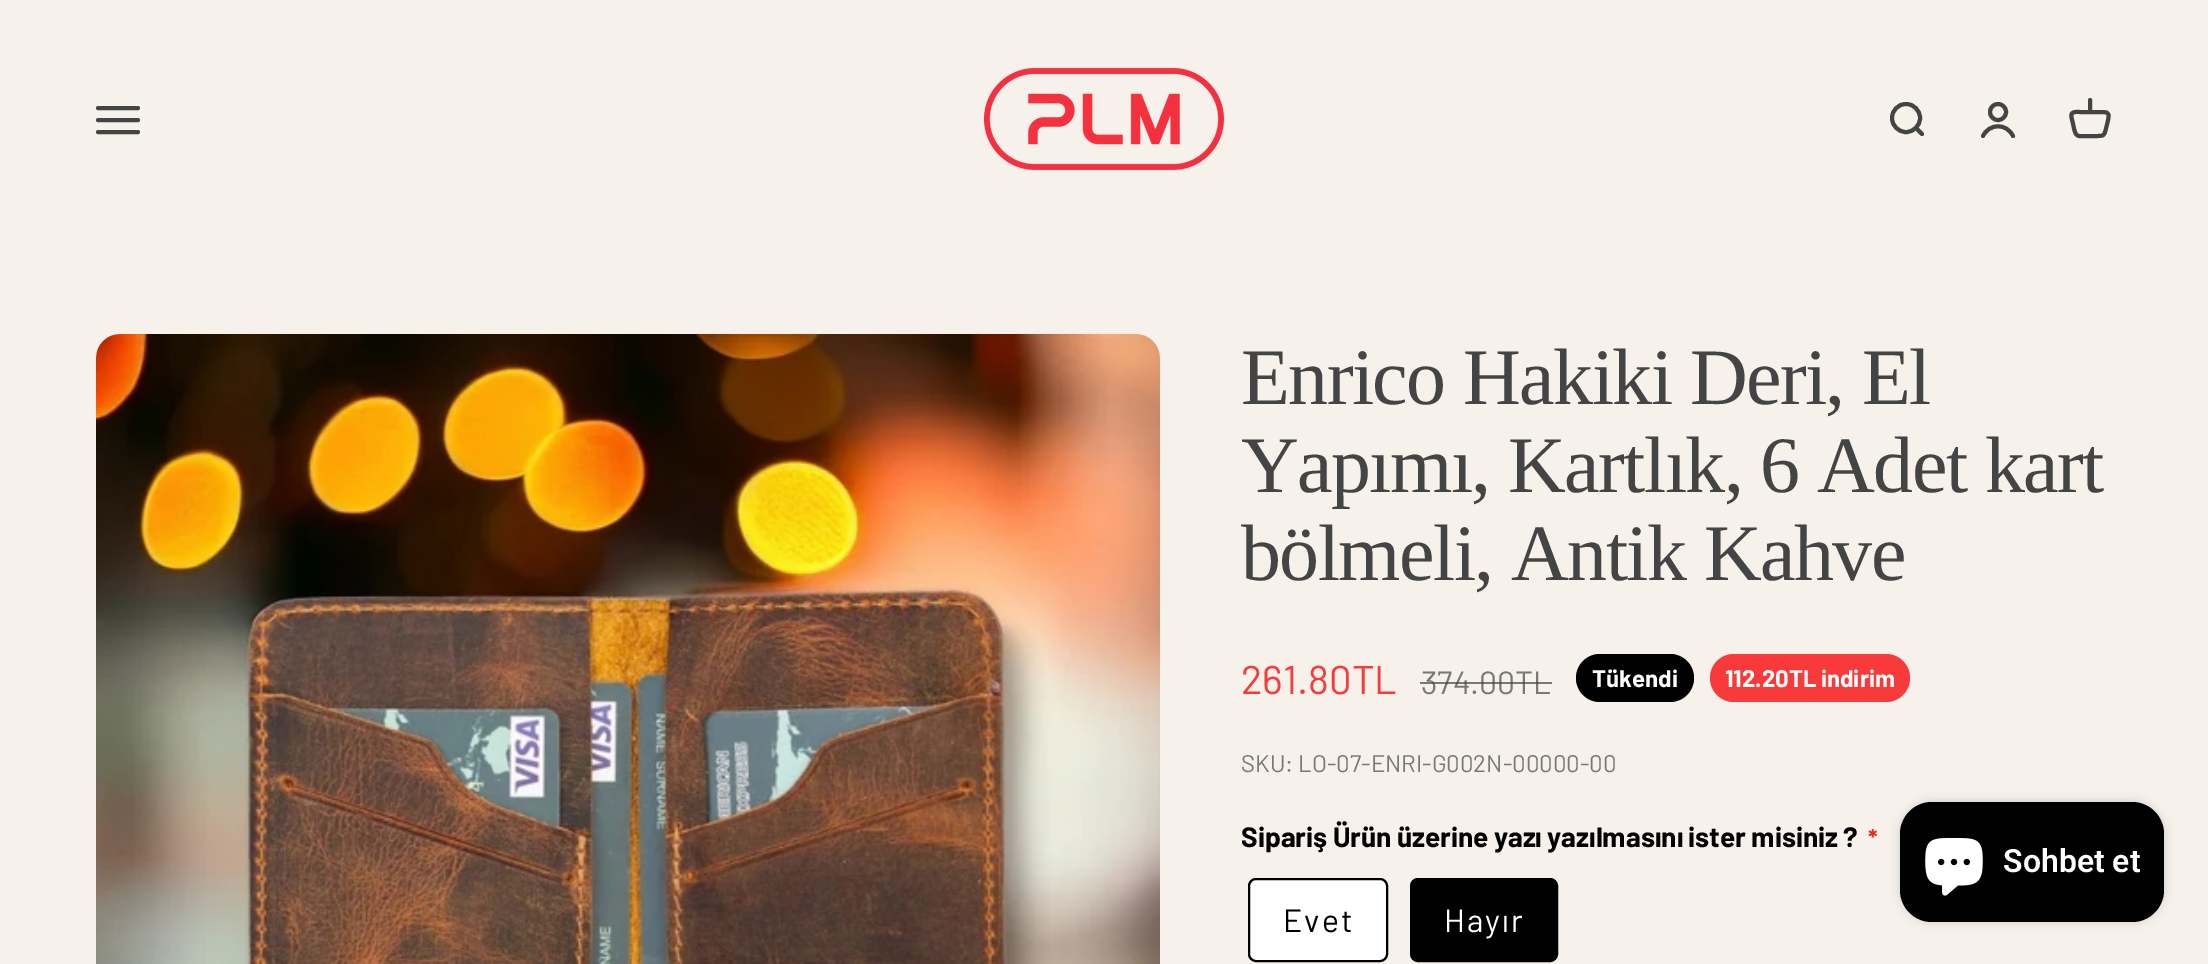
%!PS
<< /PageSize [2208 964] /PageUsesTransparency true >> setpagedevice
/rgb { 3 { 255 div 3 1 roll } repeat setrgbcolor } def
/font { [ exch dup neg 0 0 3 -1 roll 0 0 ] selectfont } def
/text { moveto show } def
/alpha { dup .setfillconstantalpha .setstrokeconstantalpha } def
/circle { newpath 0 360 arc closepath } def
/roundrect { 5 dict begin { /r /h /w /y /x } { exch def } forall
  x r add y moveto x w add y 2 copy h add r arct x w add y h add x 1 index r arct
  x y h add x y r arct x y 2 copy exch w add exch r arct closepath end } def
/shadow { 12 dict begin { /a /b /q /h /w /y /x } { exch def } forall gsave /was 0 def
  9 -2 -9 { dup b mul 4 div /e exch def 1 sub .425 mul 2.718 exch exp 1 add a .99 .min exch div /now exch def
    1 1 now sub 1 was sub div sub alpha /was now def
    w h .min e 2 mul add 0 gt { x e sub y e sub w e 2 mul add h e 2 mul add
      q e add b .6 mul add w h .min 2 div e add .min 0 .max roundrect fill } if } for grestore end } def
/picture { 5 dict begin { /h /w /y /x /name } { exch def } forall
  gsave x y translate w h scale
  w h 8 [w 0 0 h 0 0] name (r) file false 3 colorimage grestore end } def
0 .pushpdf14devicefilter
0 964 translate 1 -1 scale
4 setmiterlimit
246 241 235 rgb
0 0 2208 964 rectfill
68 68 68 rgb
4 setlinewidth
1 setlinecap
98 108 moveto 40 0 rlineto 98 120 moveto 40 0 rlineto 98 132 moveto 40 0 rlineto stroke
(img_01.rgb) 984 68 240 102 picture
0 setlinecap
1906 118 14 circle stroke
1 setlinecap
1 setlinejoin
1916 128 moveto 6 6 rlineto stroke
0 setlinecap
0 setlinejoin
1998 112 8 circle stroke
1 setlinecap
1983 136 moveto 6.5 -13 23.5 -13 30 0 rcurveto stroke
1 setlinejoin
2090 112 moveto -10 0 rlineto -2 0 -5.5 -0.5 -7.5 1 rcurveto -2 1.5 -1 4.5 -0.5 6.5 rcurveto 2.5 11 rlineto 1 2.5 1.5 5.5 5 5.5 rcurveto 17.5 0 rlineto 6 0 7 0 8.5 -5.5 rcurveto 2 -8 rlineto 1.5 -7 3 -10.5 -5 -10.5 rcurveto closepath 2090 112 moveto 0 -12 rlineto stroke
(img_02.rgb) 96 334 1064 630 picture
0 0 0 rgb
1576 654 118 48 24 roundrect fill
248 58 58 rgb
1710 654 200 48 24 roundrect fill
255 255 255 rgb
1249 879 138 82 7 roundrect gsave fill grestore
0 0 0 rgb
2 setlinewidth
0 setlinecap
0 setlinejoin
stroke
1411 879 146 82 7 roundrect gsave fill grestore
stroke
1900 802 264 120 32 5 0.15 shadow
1900 802 264 120 32 roundrect fill
(img_03.rgb) 1925 838 58 58 picture
/LiberationSerif-Regular 80 font
68 68 68 rgb
1241 404 moveto -1.6 0 (Enrico Hakiki Deri, El) ashow
1241 492 moveto -1.6 0 (Yapımı, Kartlık, 6 Adet kart) ashow
1241 580 moveto -1.6 0 (bölmeli, Antik Kahve) ashow
/Barlow-Regular 40 font
248 58 58 rgb
(261.80TL) 1241 694 text
/Barlow-Regular 32 font
121 120 118 rgb
(374.00TL) 1421 694 text
0.7 alpha
68 68 68 rgb
1420 682 132 2 rectfill
/Barlow-Bold 24 font
1 alpha
255 255 255 rgb
(Tükendi) 1592 687 text
1725 687 moveto -1 0 32 (112.20TL indirim) widthshow
/Barlow-Regular 24 font
121 120 118 rgb
(SKU: LO-07-ENRI-G002N-00000-00) 1241 772 text
/Barlow-Bold 28 font
0 0 0 rgb
1241 847 moveto -0.5 0 32 (Sipariş Ürün üzerine yazı yazılmasını ister misiniz ?) widthshow
/Barlow-Bold 24 font
224 43 39 rgb
(*) 1868 847 text
/Barlow-Regular 32 font
0 0 0 rgb
1283 932 moveto 2 0 (Evet) ashow
255 255 255 rgb
1444 932 moveto 2 0 (Hayır) ashow
/Roboto-SemiBold 32 font
(Sohbet et) 2003 872 text
.poppdf14devicefilter showpage
